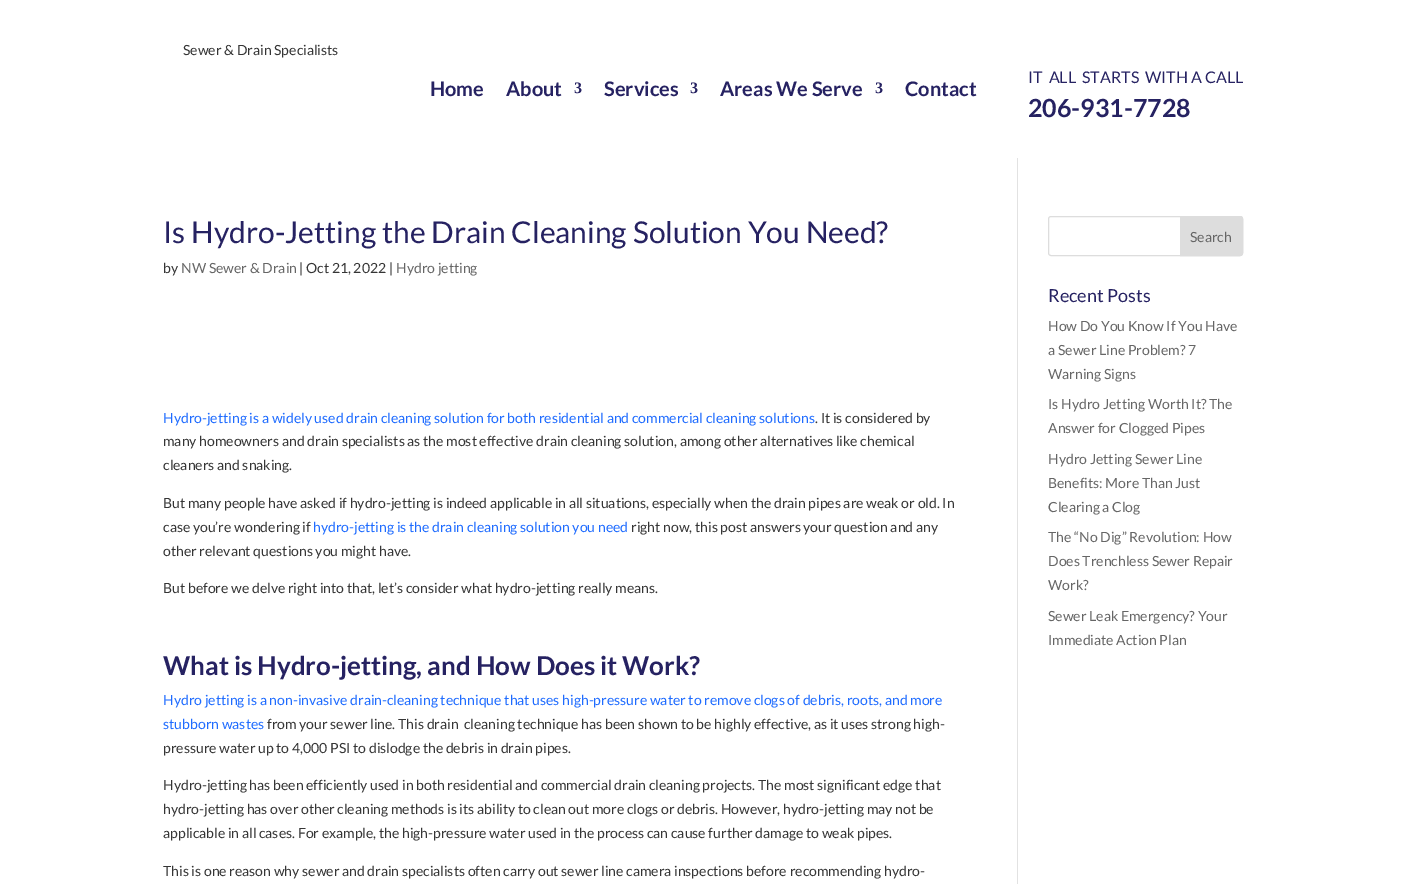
%!PS
<< /PageSize [1406 884] >> setpagedevice
/rgb { 3 { 255 div 3 1 roll } repeat setrgbcolor } def
/font { [ exch dup neg 0 0 3 -1 roll 0 0 ] selectfont } def
/text { moveto show } def
/roundrect { 5 dict begin { /r /h /w /y /x } { exch def } forall
  x r add y moveto x w add y 2 copy h add r arct x w add y h add x 1 index r arct
  x y h add x y r arct x y 2 copy exch w add exch r arct closepath end } def
0 884 translate 1 -1 scale
4 setmiterlimit
255 255 255 rgb
0 0 1406 884 rectfill
226 226 226 rgb
1017 158 1 726 rectfill
221 221 221 rgb
1048.5 216.5 194 39 2.5 roundrect stroke
1180.5 216.5 moveto 59.5 0 rlineto 1.5 0 2.5 1 2.5 2.5 rcurveto 0 34 rlineto 0 1.5 -1 2.5 -2.5 2.5 rcurveto -59.5 0 rlineto closepath gsave fill grestore
stroke
/Lato-Regular 14 font
53 53 53 rgb
(Sewer & Drain Specialists) 183 55 text
/Lato-Bold 20 font
38 34 98 rgb
(Home) 430 96 text
(About) 506 96 text
/LiberationSerif-Bold 16 font
(3) 574 93 text
/Lato-Bold 20 font
(Services) 604 96 text
/LiberationSerif-Bold 16 font
(3) 690 93 text
/Lato-Bold 20 font
(Areas We Serve) 720 96 text
/LiberationSerif-Bold 16 font
(3) 875 93 text
/Lato-Bold 20 font
(Contact) 905 96 text
/Lato-Regular 16 font
(IT  ALL  STARTS  WITH A CALL) 1028 83 text
/Lato-Bold 25 font
(206-931-7728) 1028 117 text
/Lato-Regular 30 font
(Is Hydro-Jetting the Drain Cleaning Solution You Need?) 163 243 text
/Lato-Regular 14 font
53 53 53 rgb
(by) 163 273 text
102 102 102 rgb
(NW Sewer & Drain) 181 273 text
53 53 53 rgb
(| Oct 21, 2022 |) 299 273 text
102 102 102 rgb
(Hydro jetting) 396 273 text
31 108 255 rgb
(Hydro-jetting is a widely used drain cleaning solution for both residential and commercial cleaning solutions) 163 423 text
53 53 53 rgb
(. It is considered by) 815 423 text
(many homeowners and drain specialists as the most effective drain cleaning solution, among other alternatives like chemical) 163 446 text
(cleaners and snaking.) 163 470 text
(But many people have asked if hydro-jetting is indeed applicable in all situations, especially when the drain pipes are weak or old. In) 163 508 text
(case you’re wondering if) 163 532 text
31 108 255 rgb
(hydro-jetting is the drain cleaning solution you need) 313 532 text
53 53 53 rgb
(right now, this post answers your question and any) 631 532 text
(other relevant questions you might have.) 163 556 text
(But before we delve right into that, let’s consider what hydro-jetting really means.) 163 593 text
/Lato-Bold 26 font
38 34 98 rgb
(What is Hydro-jetting, and How Does it Work?) 163 675 text
/Lato-Regular 14 font
31 108 255 rgb
(Hydro jetting is a non-invasive drain-cleaning technique that uses high-pressure water to remove clogs of debris, roots, and more) 163 705 text
(stubborn wastes) 163 729 text
53 53 53 rgb
(from your sewer line. This drain  cleaning technique has been shown to be highly effective, as it uses strong high-) 267 729 text
(pressure water up to 4,000 PSI to dislodge the debris in drain pipes.) 163 753 text
(Hydro-jetting has been efficiently used in both residential and commercial drain cleaning projects. The most significant edge that) 163 790 text
(hydro-jetting has over other cleaning methods is its ability to clean out more clogs or debris. However, hydro-jetting may not be) 163 814 text
(applicable in all cases. For example, the high-pressure water used in the process can cause further damage to weak pipes.) 163 838 text
(This is one reason why sewer and drain specialists often carry out sewer line camera inspections before recommending hydro-) 163 876 text
102 102 102 rgb
(Search) 1190 242 text
/Lato-Regular 18 font
38 34 98 rgb
(Recent Posts) 1048 302 text
/Lato-Regular 14 font
102 102 102 rgb
(How Do You Know If You Have) 1048 331 text
(a Sewer Line Problem? 7) 1048 355 text
(Warning Signs) 1048 379 text
(Is Hydro Jetting Worth It? The) 1048 409 text
(Answer for Clogged Pipes) 1048 433 text
(Hydro Jetting Sewer Line) 1048 464 text
(Benefits: More Than Just) 1048 488 text
(Clearing a Clog) 1048 512 text
(The “No Dig” Revolution: How) 1048 542 text
(Does Trenchless Sewer Repair) 1048 566 text
(Work?) 1048 590 text
(Sewer Leak Emergency? Your) 1048 621 text
(Immediate Action Plan) 1048 645 text
showpage
